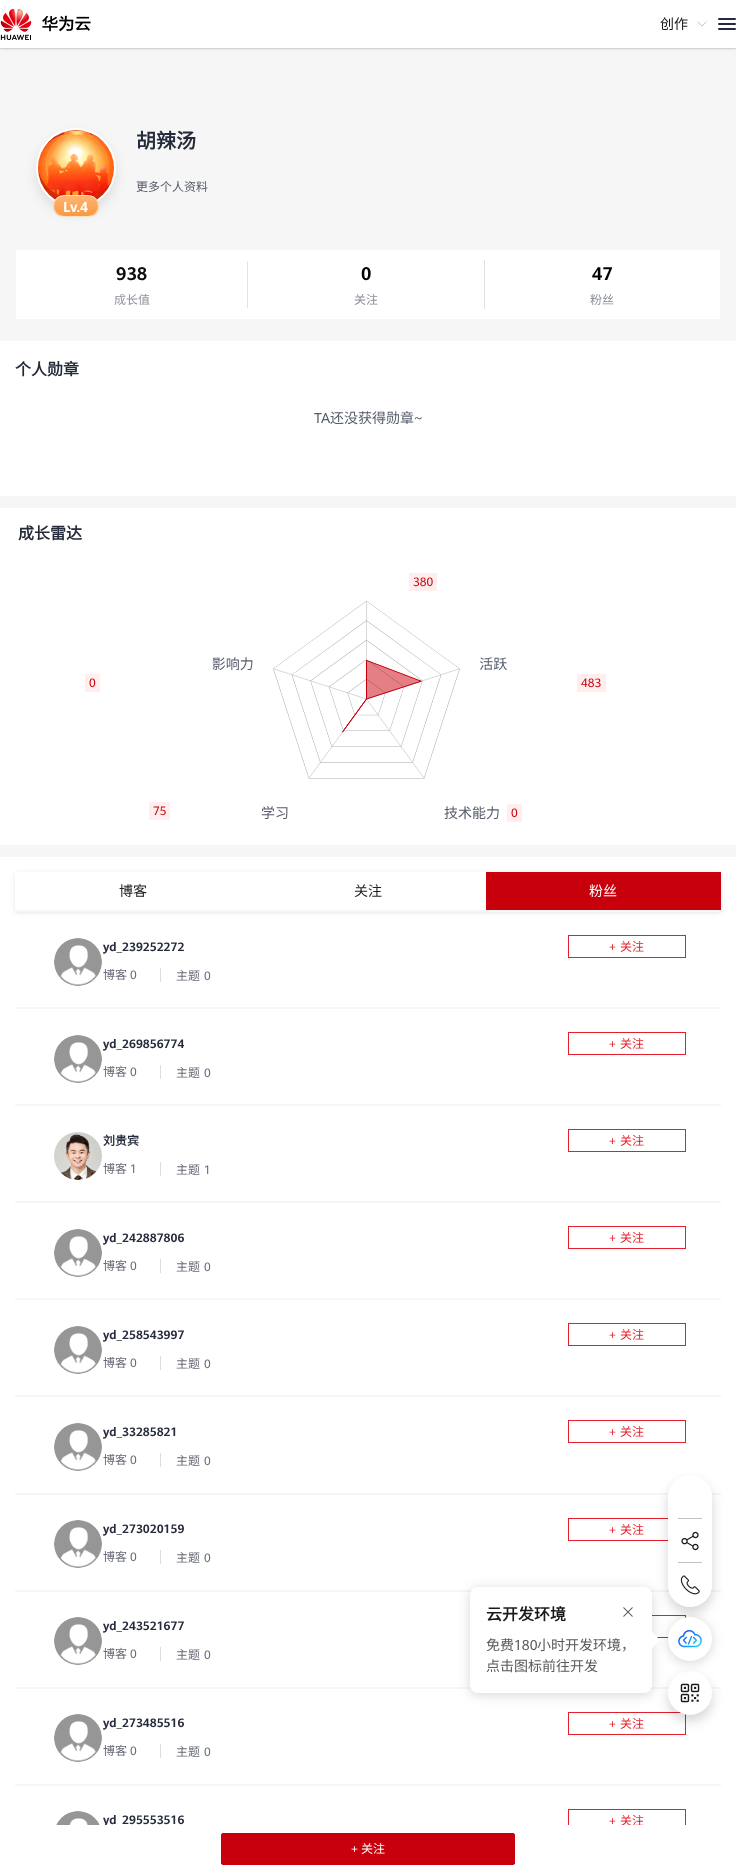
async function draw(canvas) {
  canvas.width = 736
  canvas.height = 1873
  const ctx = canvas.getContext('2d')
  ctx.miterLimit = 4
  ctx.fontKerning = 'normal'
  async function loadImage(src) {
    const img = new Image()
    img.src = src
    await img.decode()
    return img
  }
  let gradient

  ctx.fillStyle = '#f6f6f6'
  ctx.fillRect(0, 0, 736, 1873)
  ctx.fillStyle = '#dfe1e6'
  ctx.fillRect(0, 48, 736, 1)
  ctx.fillStyle = '#0000001a'
  ctx.filter = 'blur(1.5px)'
  ctx.beginPath()
  ctx.rect(0, 1, 736, 48)
  ctx.fill()
  ctx.filter = 'none'
  ctx.fillStyle = '#fff'
  ctx.fillRect(0, 0, 736, 48)
  ctx.drawImage(await loadImage('image0.png'), 0, 8, 91, 32)
  ctx.font = '14px Noto Sans CJK SC'
  ctx.fillStyle = '#191919'
  ctx.fillText('创作', 660, 29)
  ctx.drawImage(await loadImage('image1.png'), 697, 21, 10, 6)
  ctx.fillStyle = '#252b3a'
  ctx.beginPath()
  ctx.roundRect(718, 18, 18, 2, 1)
  ctx.fill()
  ctx.beginPath()
  ctx.roundRect(718, 23, 18, 2, 1)
  ctx.fill()
  ctx.beginPath()
  ctx.roundRect(718, 28, 18, 2, 1)
  ctx.fill()
  ctx.fillStyle = '#fff'
  ctx.fillRect(0, 857, 736, 968)
  ctx.fillStyle = '#f6f6f6'
  ctx.fillRect(15, 1493, 706, 2)
  ctx.fillRect(15, 1590, 706, 2)
  ctx.strokeStyle = '#e41f2b'
  ctx.strokeRect(568.5, 1518.5, 117, 22)
  ctx.strokeRect(568.5, 1615.5, 117, 22)
  ctx.fillStyle = '#0000002b'
  ctx.filter = 'blur(6px)'
  ctx.beginPath()
  ctx.roundRect(668, 1481, 44, 132, 22)
  ctx.fill()
  ctx.filter = 'none'
  ctx.fillStyle = '#fff'
  ctx.beginPath()
  ctx.roundRect(668, 1475, 44, 132, 22)
  ctx.fill()
  ctx.beginPath()
  ctx.arc(690, 1497, 22, 0, 2 * Math.PI)
  ctx.fill()
  ctx.fillStyle = '#c2c2c2'
  ctx.fillRect(678, 1518, 24, 1)
  ctx.drawImage(await loadImage('image2.png'), 681, 1531, 18, 20)
  ctx.fillRect(678, 1562, 24, 1)
  ctx.fillStyle = '#fff'
  ctx.beginPath()
  ctx.arc(690, 1585, 22, 0, 2 * Math.PI)
  ctx.fill()
  ctx.drawImage(await loadImage('image3.png'), 680, 1575, 20, 20)
  ctx.fillStyle = '#f6f6f6'
  ctx.fillRect(15, 1687, 706, 2)
  ctx.strokeRect(568.5, 1712.5, 117, 22)
  ctx.fillStyle = '#0000002b'
  ctx.filter = 'blur(6px)'
  ctx.beginPath()
  ctx.roundRect(668, 1677, 44, 44, 22)
  ctx.fill()
  ctx.filter = 'none'
  ctx.fillStyle = '#fff'
  ctx.beginPath()
  ctx.arc(690, 1693, 22, 0, 2 * Math.PI)
  ctx.fill()
  ctx.drawImage(await loadImage('image4.png'), 680, 1683, 20, 20)
  ctx.font = 'bold 20px Noto Sans CJK SC'
  ctx.fillStyle = '#252b3a'
  ctx.fillText('胡辣汤', 136, 148)
  ctx.font = '12px Noto Sans CJK SC'
  ctx.fillStyle = '#575d6c'
  ctx.fillText('更多个人资料', 136, 191)
  ctx.fillStyle = '#0000001a'
  ctx.filter = 'blur(6px)'
  ctx.beginPath()
  ctx.roundRect(36, 134, 80, 80, 40)
  ctx.fill()
  ctx.filter = 'none'
  ctx.fillStyle = '#fff'
  ctx.beginPath()
  ctx.arc(76, 168, 39, 0, 2 * Math.PI)
  ctx.fill()
  ctx.strokeStyle = '#fff'
  ctx.lineWidth = 2
  ctx.stroke()
  ctx.drawImage(await loadImage('image5.png'), 38, 130, 76, 70)
  ctx.save()
  ctx.beginPath()
  ctx.roundRect(53, 195, 46, 22, 11)
  ctx.clip()
  gradient = ctx.createLinearGradient(76, 196, 76, 216)
  gradient.addColorStop(0, '#ffb573')
  gradient.addColorStop(1, '#fa9841')
  ctx.fillStyle = gradient
  ctx.fillRect(53, 196, 46, 20)
  ctx.restore()
  ctx.beginPath()
  ctx.roundRect(53.5, 195.5, 45, 21, 10.5)
  ctx.strokeStyle = '#ffe1c7'
  ctx.lineWidth = 1
  ctx.stroke()
  ctx.font = 'bold 14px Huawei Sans'
  ctx.fillText('Lv.4', 63, 212)
  ctx.fillRect(16, 250, 704, 69)
  ctx.fillStyle = '#e1e3e7'
  ctx.fillRect(247, 261, 1, 47)
  ctx.font = 'bold 18px Huawei Sans'
  ctx.fillStyle = '#0d0d0d'
  ctx.fillText('938', 116, 280)
  ctx.font = '12px Noto Sans CJK SC'
  ctx.fillStyle = '#90949e'
  ctx.fillText('成长值', 114, 304)
  ctx.fillStyle = '#dfe1e6'
  ctx.fillRect(484, 260, 1, 49)
  ctx.font = 'bold 18px Huawei Sans'
  ctx.fillStyle = '#000'
  ctx.fillText('0', 361, 280)
  ctx.font = '12px Noto Sans CJK SC'
  ctx.fillStyle = '#8a8e99'
  ctx.fillText('关注', 354, 304)
  ctx.font = 'bold 18px Huawei Sans'
  ctx.fillStyle = '#000'
  ctx.fillText('47', 592, 280)
  ctx.font = '12px Noto Sans CJK SC'
  ctx.fillStyle = '#8a8e99'
  ctx.fillText('粉丝', 590, 304)
  ctx.fillStyle = '#fff'
  ctx.fillRect(0, 341, 736, 155)
  ctx.font = 'bold 16px Noto Sans CJK SC'
  ctx.fillStyle = '#252b3a'
  ctx.fillText('个人勋章', 15, 375)
  ctx.font = '14px Huawei Sans'
  ctx.fillStyle = '#575d6c'
  ctx.fillText('TA', 314, 423)
  ctx.font = '14px Noto Sans CJK SC'
  ctx.fillText('还没获得勋章', 330, 423)
  ctx.font = '14px Huawei Sans'
  ctx.fillText('~', 414, 423)
  ctx.fillStyle = '#fff'
  ctx.fillRect(0, 508, 736, 337)
  ctx.font = 'bold 16px Noto Sans CJK SC'
  ctx.fillStyle = '#252b3a'
  ctx.fillText('成长雷达', 18, 539)
  ctx.fillStyle = '#ffeeed'
  ctx.fillRect(409, 573, 28, 18)
  ctx.font = '12px Huawei Sans'
  ctx.fillStyle = '#c7000b'
  ctx.fillText('380', 413, 586)
  ctx.fillStyle = '#ffeeed'
  ctx.fillRect(85, 674, 15, 18)
  ctx.fillStyle = '#c7000b'
  ctx.fillText('0', 89, 687)
  ctx.drawImage(await loadImage('image6.png'), 212, 600, 295, 220)
  ctx.fillStyle = '#ffeeed'
  ctx.fillRect(577, 674, 29, 18)
  ctx.fillStyle = '#c7000b'
  ctx.fillText('483', 581, 687)
  ctx.fillStyle = '#ffeeed'
  ctx.fillRect(149, 802, 21, 18)
  ctx.fillStyle = '#c7000b'
  ctx.fillText('75', 153, 815)
  ctx.fillStyle = '#ffeeed'
  ctx.fillRect(507, 804, 15, 18)
  ctx.fillStyle = '#c7000b'
  ctx.fillText('0', 511, 817)
  ctx.save()
  ctx.beginPath()
  ctx.moveTo(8, 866)
  ctx.lineTo(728, 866)
  ctx.lineTo(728, 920)
  ctx.lineTo(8, 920)
  ctx.closePath()
  ctx.moveTo(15, 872)
  ctx.lineTo(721, 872)
  ctx.lineTo(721, 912)
  ctx.lineTo(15, 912)
  ctx.closePath()
  ctx.clip('evenodd')
  ctx.fillStyle = '#80849133'
  ctx.filter = 'blur(2px)'
  ctx.beginPath()
  ctx.rect(15, 873, 706, 40)
  ctx.fill()
  ctx.filter = 'none'
  ctx.restore()
  ctx.fillStyle = '#f6f6f6'
  ctx.fillRect(15, 910, 706, 2)
  ctx.font = '14px Noto Sans CJK SC'
  ctx.fillStyle = '#222'
  ctx.fillText('博客', 119, 896)
  ctx.fillText('关注', 354, 896)
  ctx.fillStyle = '#c7000b'
  ctx.fillRect(486, 872, 235, 38)
  ctx.fillStyle = '#fff'
  ctx.fillText('粉丝', 589, 896)
  ctx.fillStyle = '#f6f6f6'
  ctx.fillRect(15, 1007, 706, 2)
  ctx.drawImage(await loadImage('image7.png'), 54, 938, 48, 48)
  ctx.save()
  ctx.beginPath()
  ctx.rect(103, 936, 81, 22)
  ctx.clip()
  ctx.font = 'bold 12px Huawei Sans'
  ctx.fillStyle = '#252b3a'
  ctx.fillText('yd_239252272', 103, 951)
  ctx.restore()
  ctx.strokeStyle = '#e41f2b'
  ctx.strokeRect(568.5, 935.5, 117, 22)
  ctx.font = '12px Huawei Sans'
  ctx.fillStyle = '#e41f2b'
  ctx.fillText('+', 609, 951)
  ctx.font = '12px Noto Sans CJK SC'
  ctx.fillText('关注', 620, 951)
  ctx.fillStyle = '#666a75'
  ctx.fillText('博客', 103, 979)
  ctx.font = '12px Huawei Sans'
  ctx.fillText('0', 130, 979)
  ctx.fillStyle = '#ddd'
  ctx.fillRect(160, 968, 1, 14)
  ctx.font = '12px Noto Sans CJK SC'
  ctx.fillStyle = '#666a75'
  ctx.fillText('主题', 176, 980)
  ctx.font = '12px Huawei Sans'
  ctx.fillText('0', 204, 980)
  ctx.fillStyle = '#f6f6f6'
  ctx.fillRect(15, 1104, 706, 2)
  ctx.drawImage(await loadImage('image7.png'), 54, 1035, 48, 48)
  ctx.save()
  ctx.beginPath()
  ctx.rect(103, 1033, 81, 22)
  ctx.clip()
  ctx.font = 'bold 12px Huawei Sans'
  ctx.fillStyle = '#252b3a'
  ctx.fillText('yd_269856774', 103, 1048)
  ctx.restore()
  ctx.strokeRect(568.5, 1032.5, 117, 22)
  ctx.fillStyle = '#e41f2b'
  ctx.fillText('+', 609, 1048)
  ctx.font = '12px Noto Sans CJK SC'
  ctx.fillText('关注', 620, 1048)
  ctx.fillStyle = '#666a75'
  ctx.fillText('博客', 103, 1076)
  ctx.font = '12px Huawei Sans'
  ctx.fillText('0', 130, 1076)
  ctx.fillStyle = '#ddd'
  ctx.fillRect(160, 1065, 1, 14)
  ctx.font = '12px Noto Sans CJK SC'
  ctx.fillStyle = '#666a75'
  ctx.fillText('主题', 176, 1077)
  ctx.font = '12px Huawei Sans'
  ctx.fillText('0', 204, 1077)
  ctx.fillStyle = '#f6f6f6'
  ctx.fillRect(15, 1201, 706, 2)
  ctx.drawImage(await loadImage('image8.png'), 54, 1132, 48, 48)
  ctx.font = 'bold 12px Noto Sans CJK SC'
  ctx.fillStyle = '#252b3a'
  ctx.fillText('刘贵宾', 103, 1145)
  ctx.strokeRect(568.5, 1129.5, 117, 22)
  ctx.font = '12px Huawei Sans'
  ctx.fillStyle = '#e41f2b'
  ctx.fillText('+', 609, 1145)
  ctx.font = '12px Noto Sans CJK SC'
  ctx.fillText('关注', 620, 1145)
  ctx.fillStyle = '#666a75'
  ctx.fillText('博客', 103, 1173)
  ctx.font = '12px Huawei Sans'
  ctx.fillText('1', 130, 1173)
  ctx.fillStyle = '#ddd'
  ctx.fillRect(160, 1162, 1, 14)
  ctx.font = '12px Noto Sans CJK SC'
  ctx.fillStyle = '#666a75'
  ctx.fillText('主题', 176, 1174)
  ctx.font = '12px Huawei Sans'
  ctx.fillText('1', 204, 1174)
  ctx.fillStyle = '#f6f6f6'
  ctx.fillRect(15, 1298, 706, 2)
  ctx.drawImage(await loadImage('image9.png'), 54, 1229, 48, 48)
  ctx.save()
  ctx.beginPath()
  ctx.rect(103, 1227, 81, 22)
  ctx.clip()
  ctx.font = 'bold 12px Huawei Sans'
  ctx.fillStyle = '#252b3a'
  ctx.fillText('yd_242887806', 103, 1242)
  ctx.restore()
  ctx.strokeRect(568.5, 1226.5, 117, 22)
  ctx.fillStyle = '#e41f2b'
  ctx.fillText('+', 609, 1242)
  ctx.font = '12px Noto Sans CJK SC'
  ctx.fillText('关注', 620, 1242)
  ctx.fillStyle = '#666a75'
  ctx.fillText('博客', 103, 1270)
  ctx.font = '12px Huawei Sans'
  ctx.fillText('0', 130, 1270)
  ctx.fillStyle = '#ddd'
  ctx.fillRect(160, 1259, 1, 14)
  ctx.font = '12px Noto Sans CJK SC'
  ctx.fillStyle = '#666a75'
  ctx.fillText('主题', 176, 1271)
  ctx.font = '12px Huawei Sans'
  ctx.fillText('0', 204, 1271)
  ctx.fillStyle = '#f6f6f6'
  ctx.fillRect(15, 1395, 706, 2)
  ctx.drawImage(await loadImage('image7.png'), 54, 1326, 48, 48)
  ctx.save()
  ctx.beginPath()
  ctx.rect(103, 1324, 81, 22)
  ctx.clip()
  ctx.font = 'bold 12px Huawei Sans'
  ctx.fillStyle = '#252b3a'
  ctx.fillText('yd_258543997', 103, 1339)
  ctx.restore()
  ctx.strokeRect(568.5, 1323.5, 117, 22)
  ctx.fillStyle = '#e41f2b'
  ctx.fillText('+', 609, 1339)
  ctx.font = '12px Noto Sans CJK SC'
  ctx.fillText('关注', 620, 1339)
  ctx.fillStyle = '#666a75'
  ctx.fillText('博客', 103, 1367)
  ctx.font = '12px Huawei Sans'
  ctx.fillText('0', 130, 1367)
  ctx.fillStyle = '#ddd'
  ctx.fillRect(160, 1356, 1, 14)
  ctx.font = '12px Noto Sans CJK SC'
  ctx.fillStyle = '#666a75'
  ctx.fillText('主题', 176, 1368)
  ctx.font = '12px Huawei Sans'
  ctx.fillText('0', 204, 1368)
  ctx.drawImage(await loadImage('image7.png'), 54, 1423, 48, 48)
  ctx.save()
  ctx.beginPath()
  ctx.rect(103, 1421, 74, 22)
  ctx.clip()
  ctx.font = 'bold 12px Huawei Sans'
  ctx.fillStyle = '#252b3a'
  ctx.fillText('yd_33285821', 103, 1436)
  ctx.restore()
  ctx.strokeRect(568.5, 1420.5, 117, 22)
  ctx.fillStyle = '#e41f2b'
  ctx.fillText('+', 609, 1436)
  ctx.font = '12px Noto Sans CJK SC'
  ctx.fillText('关注', 620, 1436)
  ctx.fillStyle = '#666a75'
  ctx.fillText('博客', 103, 1464)
  ctx.font = '12px Huawei Sans'
  ctx.fillText('0', 130, 1464)
  ctx.fillStyle = '#ddd'
  ctx.fillRect(160, 1453, 1, 14)
  ctx.font = '12px Noto Sans CJK SC'
  ctx.fillStyle = '#666a75'
  ctx.fillText('主题', 176, 1465)
  ctx.font = '12px Huawei Sans'
  ctx.fillText('0', 204, 1465)
  ctx.drawImage(await loadImage('image10.png'), 54, 1520, 48, 48)
  ctx.save()
  ctx.beginPath()
  ctx.rect(103, 1518, 81, 22)
  ctx.clip()
  ctx.font = 'bold 12px Huawei Sans'
  ctx.fillStyle = '#252b3a'
  ctx.fillText('yd_273020159', 103, 1533)
  ctx.restore()
  ctx.fillStyle = '#e41f2b'
  ctx.fillText('+', 609, 1534)
  ctx.font = '12px Noto Sans CJK SC'
  ctx.fillText('关注', 620, 1534)
  ctx.fillStyle = '#666a75'
  ctx.fillText('博客', 103, 1561)
  ctx.font = '12px Huawei Sans'
  ctx.fillText('0', 130, 1561)
  ctx.fillStyle = '#ddd'
  ctx.fillRect(160, 1550, 1, 14)
  ctx.font = '12px Noto Sans CJK SC'
  ctx.fillStyle = '#666a75'
  ctx.fillText('主题', 176, 1562)
  ctx.font = '12px Huawei Sans'
  ctx.fillText('0', 204, 1562)
  ctx.drawImage(await loadImage('image7.png'), 54, 1617, 48, 48)
  ctx.save()
  ctx.beginPath()
  ctx.rect(103, 1615, 81, 22)
  ctx.clip()
  ctx.font = 'bold 12px Huawei Sans'
  ctx.fillStyle = '#252b3a'
  ctx.fillText('yd_243521677', 103, 1630)
  ctx.restore()
  ctx.font = '12px Noto Sans CJK SC'
  ctx.fillText('博客', 103, 1658)
  ctx.font = '12px Huawei Sans'
  ctx.fillText('0', 130, 1658)
  ctx.fillStyle = '#ddd'
  ctx.fillRect(160, 1647, 1, 14)
  ctx.font = '12px Noto Sans CJK SC'
  ctx.fillStyle = '#666a75'
  ctx.fillText('主题', 176, 1659)
  ctx.font = '12px Huawei Sans'
  ctx.fillText('0', 204, 1659)
  ctx.fillStyle = '#f6f6f6'
  ctx.fillRect(15, 1784, 706, 2)
  ctx.drawImage(await loadImage('image7.png'), 54, 1714, 48, 48)
  ctx.save()
  ctx.beginPath()
  ctx.rect(103, 1712, 81, 22)
  ctx.clip()
  ctx.font = 'bold 12px Huawei Sans'
  ctx.fillStyle = '#252b3a'
  ctx.fillText('yd_273485516', 103, 1727)
  ctx.restore()
  ctx.fillStyle = '#e41f2b'
  ctx.fillText('+', 609, 1728)
  ctx.font = '12px Noto Sans CJK SC'
  ctx.fillText('关注', 620, 1728)
  ctx.fillStyle = '#666a75'
  ctx.fillText('博客', 103, 1755)
  ctx.font = '12px Huawei Sans'
  ctx.fillText('0', 130, 1755)
  ctx.fillStyle = '#ddd'
  ctx.fillRect(160, 1744, 1, 14)
  ctx.font = '12px Noto Sans CJK SC'
  ctx.fillStyle = '#666a75'
  ctx.fillText('主题', 176, 1756)
  ctx.font = '12px Huawei Sans'
  ctx.fillText('0', 204, 1756)
  ctx.drawImage(await loadImage('image11.png'), 56, 1811, 44, 14)
  ctx.font = 'bold 12px Huawei Sans'
  ctx.fillStyle = '#252b3a'
  ctx.fillText('yd_295553516', 103, 1824)
  ctx.strokeRect(568.5, 1809.5, 117, 22)
  ctx.font = '12px Huawei Sans'
  ctx.fillStyle = '#e41f2b'
  ctx.fillText('+', 609, 1825)
  ctx.font = '12px Noto Sans CJK SC'
  ctx.fillText('关注', 620, 1825)
  ctx.fillStyle = '#fff'
  ctx.fillRect(0, 1825, 736, 48)
  ctx.fillStyle = '#c7000b'
  ctx.beginPath()
  ctx.roundRect(221.5, 1833.5, 293, 31, 1.5)
  ctx.fill()
  ctx.strokeStyle = '#c7000b'
  ctx.stroke()
  ctx.font = '12px Huawei Sans'
  ctx.fillStyle = '#fff'
  ctx.fillText('+', 351, 1853)
  ctx.font = '12px Noto Sans CJK SC'
  ctx.fillText('关注', 361, 1853)
  ctx.fillStyle = '#00000029'
  ctx.filter = 'blur(6px)'
  ctx.beginPath()
  ctx.roundRect(470, 1589, 182, 106, 8)
  ctx.fill()
  ctx.filter = 'none'
  ctx.fillStyle = '#fff'
  ctx.beginPath()
  ctx.roundRect(470, 1587, 182, 106, 8)
  ctx.fill()
  ctx.font = 'bold 16px Noto Sans CJK SC'
  ctx.fillStyle = '#191919'
  ctx.fillText('云开发环境', 486, 1620)
  ctx.drawImage(await loadImage('image12.png'), 623, 1607, 10, 10)
  ctx.font = '14px Noto Sans CJK SC'
  ctx.fillStyle = '#595959'
  ctx.fillText('免费', 486, 1650)
  ctx.font = '14px Huawei Sans'
  ctx.fillText('180', 514, 1650)
  ctx.font = '14px Noto Sans CJK SC'
  ctx.fillText('小时开发环境，', 537, 1650)
  ctx.fillText('点击图标前往开发', 486, 1671)
  ctx.fillStyle = '#fff'
  ctx.beginPath()
  ctx.moveTo(652, 1648)
  ctx.lineTo(652, 1632)
  ctx.lineTo(660, 1640)
  ctx.closePath()
  ctx.fill()
  ctx.fillStyle = '#00000029'
  ctx.filter = 'blur(6px)'
  ctx.beginPath()
  ctx.roundRect(668, 1619, 44, 44, 22)
  ctx.fill()
  ctx.filter = 'none'
  ctx.fillStyle = '#fff'
  ctx.beginPath()
  ctx.arc(690, 1639, 22, 0, 2 * Math.PI)
  ctx.fill()
  ctx.drawImage(await loadImage('image13.png'), 678, 1630, 24, 18)
}

draw(document.querySelector('canvas'))
